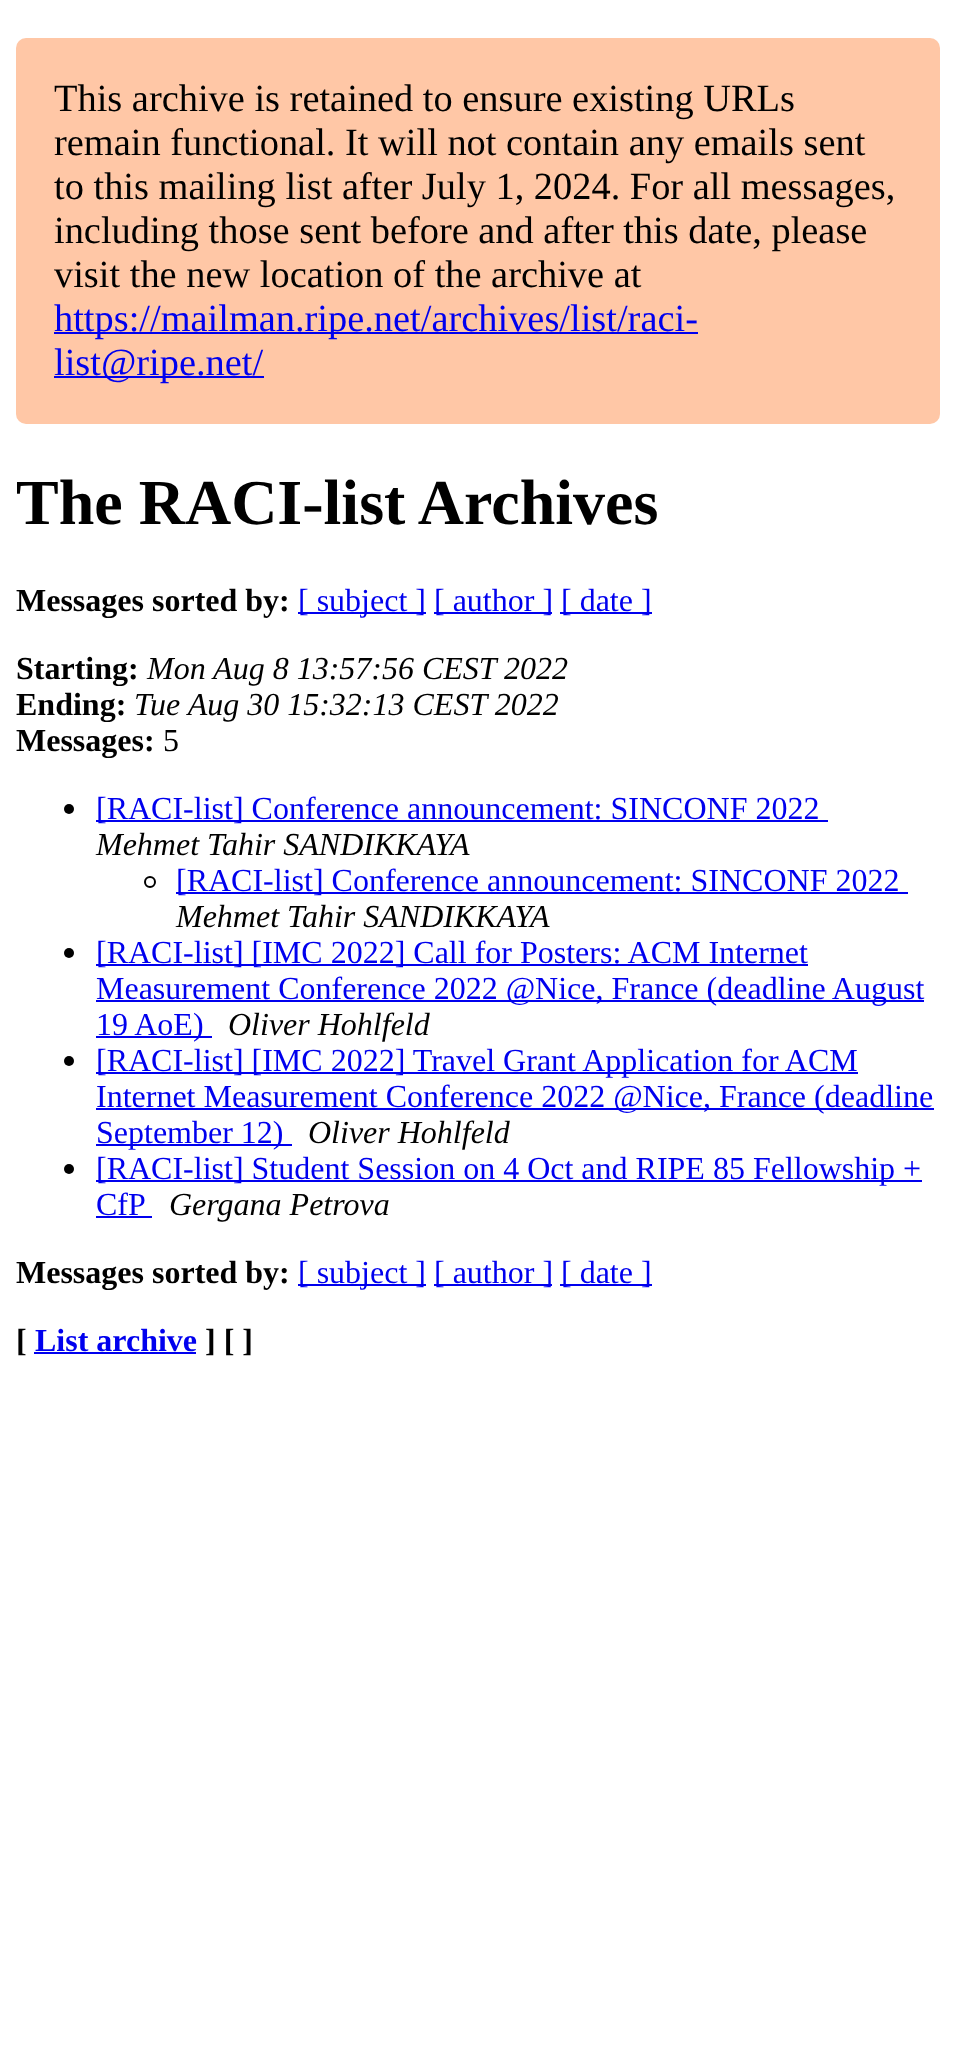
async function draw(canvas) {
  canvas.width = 955
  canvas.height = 2069
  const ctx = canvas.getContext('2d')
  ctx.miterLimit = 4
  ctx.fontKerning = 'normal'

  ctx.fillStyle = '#fff'
  ctx.fillRect(0, 0, 955, 2069)
  ctx.fillStyle = '#ffc7a6'
  ctx.beginPath()
  ctx.roundRect(16, 38, 924, 386, 10)
  ctx.fill()
  ctx.font = '38.4px Liberation Serif'
  ctx.fillStyle = '#000'
  ctx.fillText('This archive is retained to ensure existing URLs', 54, 111)
  ctx.fillText('remain functional. It will not contain any emails sent', 54, 155)
  ctx.fillText('to this mailing list after July 1, 2024. For all messages,', 54, 199)
  ctx.fillText('including those sent before and after this date, please', 54, 243)
  ctx.fillText('visit the new location of the archive at', 54, 287)
  ctx.fillStyle = '#00e'
  ctx.fillRect(54, 332, 644, 2)
  ctx.fillText('https://mailman.ripe.net/archives/list/raci-', 54, 331)
  ctx.fillRect(54, 376, 210, 2)
  ctx.fillText('list@ripe.net/', 54, 375)
  ctx.font = 'bold 64px Liberation Serif'
  ctx.fillStyle = '#000'
  ctx.fillText('The RACI-list Archives', 16, 524)
  ctx.font = 'bold 32px Liberation Serif'
  ctx.fillText('Messages sorted by:', 16, 611)
  ctx.fillStyle = '#00e'
  ctx.fillRect(298, 612, 128, 2)
  ctx.font = '32px Liberation Serif'
  ctx.fillText('[ subject ]', 298, 611)
  ctx.fillRect(434, 612, 118, 2)
  ctx.fillText('[ author ]', 434, 611)
  ctx.fillRect(560, 612, 92, 2)
  ctx.fillText('[ date ]', 561, 611)
  ctx.font = 'bold 32px Liberation Serif'
  ctx.fillStyle = '#000'
  ctx.fillText('Starting:', 16, 679)
  ctx.font = 'italic 32px Liberation Serif'
  ctx.fillText('Mon Aug 8 13:57:56 CEST 2022', 147, 679)
  ctx.font = 'bold 32px Liberation Serif'
  ctx.fillText('Ending:', 16, 715)
  ctx.font = 'italic 32px Liberation Serif'
  ctx.fillText('Tue Aug 30 15:32:13 CEST 2022', 134, 715)
  ctx.font = 'bold 32px Liberation Serif'
  ctx.fillText('Messages:', 16, 751)
  ctx.font = '32px Liberation Serif'
  ctx.fillText('5', 163, 751)
  ctx.beginPath()
  ctx.arc(69, 809, 5, 0, 2 * Math.PI)
  ctx.fill()
  ctx.fillStyle = '#00e'
  ctx.fillRect(96, 820, 732, 2)
  ctx.fillText('[RACI-list] Conference announcement: SINCONF 2022', 96, 819)
  ctx.font = 'italic 32px Liberation Serif'
  ctx.fillStyle = '#000'
  ctx.fillText('Mehmet Tahir SANDIKKAYA', 96, 855)
  ctx.beginPath()
  ctx.arc(150, 882, 5, 0, 2 * Math.PI)
  ctx.strokeStyle = '#000'
  ctx.lineWidth = 2
  ctx.stroke()
  ctx.fillStyle = '#00e'
  ctx.fillRect(176, 892, 732, 2)
  ctx.font = '32px Liberation Serif'
  ctx.fillText('[RACI-list] Conference announcement: SINCONF 2022', 176, 891)
  ctx.font = 'italic 32px Liberation Serif'
  ctx.fillStyle = '#000'
  ctx.fillText('Mehmet Tahir SANDIKKAYA', 176, 927)
  ctx.beginPath()
  ctx.arc(69, 953, 5, 0, 2 * Math.PI)
  ctx.fill()
  ctx.fillStyle = '#00e'
  ctx.fillRect(96, 964, 712, 2)
  ctx.font = '32px Liberation Serif'
  ctx.fillText('[RACI-list] [IMC 2022] Call for Posters: ACM Internet', 96, 963)
  ctx.fillRect(96, 1000, 828, 2)
  ctx.fillText('Measurement Conference 2022 @Nice, France (deadline August', 96, 999)
  ctx.fillRect(96, 1036, 116, 2)
  ctx.fillText('19 AoE)', 96, 1035)
  ctx.font = 'italic 32px Liberation Serif'
  ctx.fillStyle = '#000'
  ctx.fillText('Oliver Hohlfeld', 228, 1035)
  ctx.beginPath()
  ctx.arc(69, 1061, 5, 0, 2 * Math.PI)
  ctx.fill()
  ctx.fillStyle = '#00e'
  ctx.fillRect(96, 1072, 762, 2)
  ctx.font = '32px Liberation Serif'
  ctx.fillText('[RACI-list] [IMC 2022] Travel Grant Application for ACM', 96, 1071)
  ctx.fillRect(96, 1108, 838, 2)
  ctx.fillText('Internet Measurement Conference 2022 @Nice, France (deadline', 96, 1107)
  ctx.fillRect(96, 1144, 196, 2)
  ctx.fillText('September 12)', 96, 1143)
  ctx.font = 'italic 32px Liberation Serif'
  ctx.fillStyle = '#000'
  ctx.fillText('Oliver Hohlfeld', 308, 1143)
  ctx.beginPath()
  ctx.arc(69, 1169, 5, 0, 2 * Math.PI)
  ctx.fill()
  ctx.fillStyle = '#00e'
  ctx.fillRect(96, 1180, 826, 2)
  ctx.font = '32px Liberation Serif'
  ctx.fillText('[RACI-list] Student Session on 4 Oct and RIPE 85 Fellowship +', 96, 1179)
  ctx.fillText('CfP', 96, 1215)
  ctx.fillRect(96, 1216, 56, 2)
  ctx.font = 'italic 32px Liberation Serif'
  ctx.fillStyle = '#000'
  ctx.fillText('Gergana Petrova', 169, 1215)
  ctx.font = 'bold 32px Liberation Serif'
  ctx.fillText('Messages sorted by:', 16, 1283)
  ctx.fillStyle = '#00e'
  ctx.fillRect(298, 1284, 128, 2)
  ctx.font = '32px Liberation Serif'
  ctx.fillText('[ subject ]', 298, 1283)
  ctx.fillRect(434, 1284, 118, 2)
  ctx.fillText('[ author ]', 434, 1283)
  ctx.fillRect(560, 1284, 92, 2)
  ctx.fillText('[ date ]', 561, 1283)
  ctx.font = 'bold 32px Liberation Serif'
  ctx.fillStyle = '#000'
  ctx.fillText('[', 16, 1351)
  ctx.fillStyle = '#00e'
  ctx.fillText('List archive', 35, 1351)
  ctx.fillRect(34, 1352, 162, 2)
  ctx.fillStyle = '#000'
  ctx.fillText('] [ ]', 205, 1351)
}

draw(document.querySelector('canvas'))
